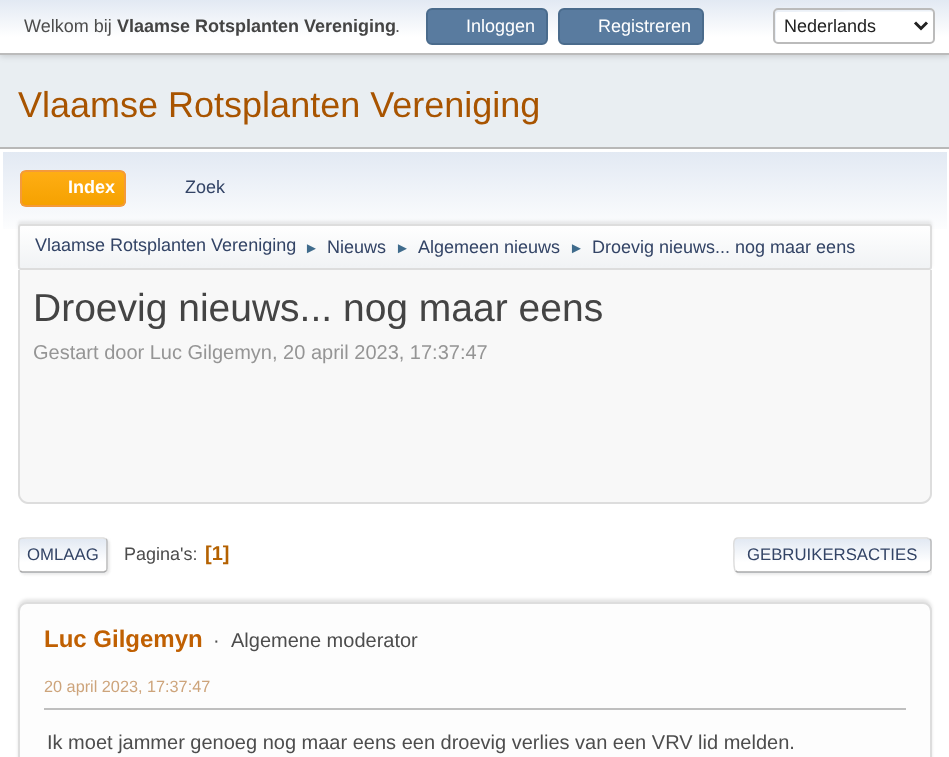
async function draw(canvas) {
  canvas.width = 949
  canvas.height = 757
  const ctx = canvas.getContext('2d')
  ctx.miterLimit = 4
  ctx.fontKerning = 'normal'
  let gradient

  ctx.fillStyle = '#e9eef2'
  ctx.fillRect(0, 0, 949, 757)
  ctx.fillStyle = '#00000029'
  ctx.filter = 'blur(3px)'
  ctx.beginPath()
  ctx.rect(0, 2, 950, 54)
  ctx.fill()
  ctx.filter = 'none'
  gradient = ctx.createLinearGradient(475, 0, 475, 53)
  gradient.addColorStop(0, '#e2e9f3')
  gradient.addColorStop(0.7, '#fff')
  ctx.fillStyle = gradient
  ctx.fillRect(0, 0, 949, 53)
  ctx.fillStyle = '#bbb'
  ctx.fillRect(0, 53, 949, 2)
  ctx.font = '18px Liberation Sans'
  ctx.fillStyle = '#4d4d4d'
  ctx.fillText('Welkom bij', 24, 32)
  ctx.font = 'bold 18px Liberation Sans'
  ctx.fillStyle = '#444'
  ctx.fillText('Vlaamse Rotsplanten Vereniging', 117, 32)
  ctx.font = '18px Liberation Sans'
  ctx.fillStyle = '#4d4d4d'
  ctx.fillText('.', 395, 32)
  ctx.fillStyle = '#597b9f'
  ctx.beginPath()
  ctx.roundRect(427, 9, 120, 35, 5)
  ctx.fill()
  ctx.strokeStyle = '#4a6b8c'
  ctx.lineWidth = 2
  ctx.stroke()
  ctx.fillStyle = '#fff'
  ctx.fillText('Inloggen', 466, 32)
  ctx.fillStyle = '#597b9f'
  ctx.beginPath()
  ctx.roundRect(559, 9, 144, 35, 5)
  ctx.fill()
  ctx.stroke()
  ctx.fillStyle = '#fff'
  ctx.fillText('Registreren', 598, 32)
  ctx.beginPath()
  ctx.roundRect(773, 8, 162, 36, 5)
  ctx.fill()
  ctx.fillStyle = '#ecf1f8'
  ctx.beginPath()
  ctx.moveTo(778, 12)
  ctx.bezierCurveTo(792, 12, 932, 11, 933, 12)
  ctx.lineTo(932, 10)
  ctx.lineTo(930, 9)
  ctx.lineTo(802, 9)
  ctx.bezierCurveTo(802, 9, 774, 4, 774, 12)
  ctx.lineTo(774, 30)
  ctx.bezierCurveTo(774, 32, 772, 41, 776, 42)
  ctx.lineTo(776, 15)
  ctx.bezierCurveTo(776, 13, 777, 12, 778, 12)
  ctx.closePath()
  ctx.fill()
  ctx.beginPath()
  ctx.roundRect(774, 9, 160, 34, 4)
  ctx.strokeStyle = '#bbb'
  ctx.stroke()
  ctx.beginPath()
  ctx.moveTo(915, 22.5)
  ctx.lineTo(921, 28.5)
  ctx.lineTo(927, 22.5)
  ctx.strokeStyle = '#222'
  ctx.lineWidth = 3
  ctx.stroke()
  ctx.fillStyle = '#222'
  ctx.fillText('Nederlands', 784, 32)
  ctx.font = '36px Liberation Sans'
  ctx.fillStyle = '#a85400'
  ctx.fillText('Vlaamse Rotsplanten Vereniging', 18, 117)
  ctx.fillStyle = '#fff'
  ctx.fillRect(0, 149, 949, 608)
  ctx.fillStyle = '#b8b8b8'
  ctx.fillRect(0, 147, 949, 2)
  gradient = ctx.createLinearGradient(475, 151, 475, 273)
  gradient.addColorStop(0, '#e2e9f3')
  gradient.addColorStop(0.7, '#fff')
  ctx.fillStyle = gradient
  ctx.fillRect(3, 152, 944, 77)
  ctx.save()
  ctx.beginPath()
  ctx.roundRect(20, 170, 106, 37, 6)
  ctx.clip()
  gradient = ctx.createLinearGradient(73, 171, 73, 206)
  gradient.addColorStop(0, '#ffae14')
  gradient.addColorStop(1, '#f5a100')
  ctx.fillStyle = gradient
  ctx.fillRect(20, 171, 106, 35)
  ctx.restore()
  ctx.beginPath()
  ctx.roundRect(21, 171, 104, 35, 5)
  ctx.strokeStyle = '#f49a3a'
  ctx.lineWidth = 2
  ctx.stroke()
  ctx.font = 'bold 18px Liberation Sans'
  ctx.fillStyle = '#fff'
  ctx.fillText('Index', 68, 193)
  ctx.font = '18px Liberation Sans'
  ctx.fillStyle = '#346'
  ctx.fillText('Zoek', 185, 193)
  ctx.fillStyle = '#00000014'
  ctx.filter = 'blur(1.5px)'
  ctx.beginPath()
  ctx.roundRect(18, 221, 914, 46, 3)
  ctx.fill()
  ctx.filter = 'none'
  ctx.save()
  ctx.beginPath()
  ctx.roundRect(18, 224, 914, 46, 3)
  ctx.clip()
  gradient = ctx.createLinearGradient(475, 225, 475, 269)
  gradient.addColorStop(0, '#fff')
  gradient.addColorStop(0.95, '#f1f3f5')
  ctx.fillStyle = gradient
  ctx.fillRect(18, 225, 914, 44)
  ctx.restore()
  ctx.beginPath()
  ctx.roundRect(19, 225, 912, 44, 2)
  ctx.strokeStyle = '#ddd'
  ctx.stroke()
  ctx.fillStyle = '#346'
  ctx.fillText('Vlaamse Rotsplanten Vereniging', 35, 251)
  ctx.font = '15px Liberation Sans'
  ctx.fillStyle = '#3f6b8c'
  ctx.fillText('►', 304, 253)
  ctx.font = '18px Liberation Sans'
  ctx.fillStyle = '#346'
  ctx.fillText('Nieuws', 327, 253)
  ctx.font = '15px Liberation Sans'
  ctx.fillStyle = '#3f6b8c'
  ctx.fillText('►', 395, 253)
  ctx.font = '18px Liberation Sans'
  ctx.fillStyle = '#346'
  ctx.fillText('Algemeen nieuws', 418, 253)
  ctx.font = '15px Liberation Sans'
  ctx.fillStyle = '#3f6b8c'
  ctx.fillText('►', 569, 253)
  ctx.font = '18px Liberation Sans'
  ctx.fillStyle = '#346'
  ctx.fillText('Droevig nieuws... nog maar eens', 592, 253)
  ctx.fillStyle = '#f8f8f8'
  ctx.beginPath()
  ctx.roundRect(18, 270, 914, 234, [0, 0, 11, 11])
  ctx.fill()
  ctx.fillStyle = '#ddd'
  ctx.beginPath()
  ctx.moveTo(18, 270)
  ctx.lineTo(932, 270)
  ctx.lineTo(932, 494)
  ctx.bezierCurveTo(932, 499, 927, 504, 921, 504)
  ctx.lineTo(28, 504)
  ctx.bezierCurveTo(23, 504, 18, 499, 18, 494)
  ctx.closePath()
  ctx.moveTo(20, 270)
  ctx.lineTo(930, 270)
  ctx.lineTo(930, 494)
  ctx.bezierCurveTo(930, 498, 926, 502, 921, 502)
  ctx.lineTo(28, 502)
  ctx.bezierCurveTo(24, 502, 20, 498, 20, 494)
  ctx.closePath()
  ctx.fill('evenodd')
  ctx.font = '39px Liberation Sans'
  ctx.fillStyle = '#444'
  ctx.fillText('Droevig nieuws... nog maar eens', 33, 321)
  ctx.font = '20px Liberation Sans'
  ctx.fillStyle = '#959595'
  ctx.fillText('Gestart door Luc Gilgemyn, 20 april 2023, 17:37:47', 33, 359)
  ctx.fillStyle = '#dddddd91'
  ctx.filter = 'blur(1px)'
  ctx.beginPath()
  ctx.roundRect(20, 539, 90, 36, 5)
  ctx.fill()
  ctx.filter = 'none'
  ctx.fillStyle = '#fff'
  ctx.beginPath()
  ctx.roundRect(18, 537, 90, 36, 5)
  ctx.fill()
  ctx.save()
  ctx.beginPath()
  ctx.roundRect(18, 537, 90, 36, 5)
  ctx.clip()
  gradient = ctx.createLinearGradient(63, 539, 63, 572)
  gradient.addColorStop(0, '#e2e9f3')
  gradient.addColorStop(0.7, '#fff')
  ctx.fillStyle = gradient
  ctx.fillRect(18, 539, 90, 33)
  gradient = ctx.createLinearGradient(63, 572, 63, 605)
  gradient.addColorStop(0, '#e2e9f3')
  gradient.addColorStop(0.7, '#fff')
  ctx.fillStyle = gradient
  ctx.fillRect(18, 572, 90, 1)
  ctx.restore()
  ctx.beginPath()
  ctx.moveTo(106, 539)
  ctx.bezierCurveTo(107, 539.5, 107, 540.5, 107, 541.5)
  ctx.lineTo(107, 568.5)
  ctx.bezierCurveTo(107, 569.5, 107, 570.5, 106, 571)
  ctx.strokeStyle = '#bbb'
  ctx.lineWidth = 1.5
  ctx.stroke()
  ctx.beginPath()
  ctx.moveTo(106, 571)
  ctx.lineTo(104, 572)
  ctx.lineTo(22, 572)
  ctx.lineTo(20, 571)
  ctx.strokeStyle = '#aaa'
  ctx.stroke()
  ctx.save()
  ctx.beginPath()
  ctx.rect(18, 527, 914, 57)
  ctx.clip()
  ctx.beginPath()
  ctx.moveTo(20, 571)
  ctx.bezierCurveTo(17.5, 569, 19, 558, 19, 555)
  ctx.bezierCurveTo(19, 535, 15.5, 538, 36, 538)
  ctx.lineTo(103.5, 538)
  ctx.lineTo(106, 539)
  ctx.strokeStyle = '#ddd'
  ctx.stroke()
  ctx.restore()
  ctx.font = '16.75px Liberation Sans'
  ctx.fillStyle = '#346'
  ctx.fillText('OMLAAG', 27, 560)
  ctx.font = '18px Liberation Sans'
  ctx.fillStyle = '#4d4d4d'
  ctx.fillText('Pagina\'s:', 124, 560)
  ctx.font = 'bold 20px Liberation Sans'
  ctx.fillStyle = '#b46100'
  ctx.fillText('[1]', 205, 560)
  ctx.save()
  ctx.beginPath()
  ctx.rect(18, 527, 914, 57)
  ctx.clip()
  ctx.fillStyle = '#dddddd91'
  ctx.filter = 'blur(1px)'
  ctx.beginPath()
  ctx.roundRect(735, 539, 198, 36, 5)
  ctx.fill()
  ctx.filter = 'none'
  ctx.restore()
  ctx.fillStyle = '#fff'
  ctx.beginPath()
  ctx.roundRect(734, 537, 198, 36, 5)
  ctx.fill()
  ctx.save()
  ctx.beginPath()
  ctx.roundRect(734, 537, 198, 36, 5)
  ctx.clip()
  gradient = ctx.createLinearGradient(833, 539, 833, 572)
  gradient.addColorStop(0, '#e2e9f3')
  gradient.addColorStop(0.7, '#fff')
  ctx.fillStyle = gradient
  ctx.fillRect(734, 539, 198, 33)
  gradient = ctx.createLinearGradient(833, 572, 833, 605)
  gradient.addColorStop(0, '#e2e9f3')
  gradient.addColorStop(0.7, '#fff')
  ctx.fillStyle = gradient
  ctx.fillRect(734, 572, 198, 1)
  ctx.restore()
  ctx.beginPath()
  ctx.moveTo(929.5, 539)
  ctx.bezierCurveTo(930.5, 539.5, 931, 540.5, 931, 541.5)
  ctx.lineTo(931, 568.5)
  ctx.bezierCurveTo(931, 569.5, 930.5, 570.5, 929.5, 571)
  ctx.strokeStyle = '#bbb'
  ctx.stroke()
  ctx.beginPath()
  ctx.moveTo(929.5, 571)
  ctx.lineTo(927, 572)
  ctx.lineTo(737.5, 572)
  ctx.lineTo(735.5, 571)
  ctx.strokeStyle = '#aaa'
  ctx.stroke()
  ctx.beginPath()
  ctx.moveTo(735.5, 571)
  ctx.bezierCurveTo(733, 568.5, 734, 554, 734, 550.5)
  ctx.bezierCurveTo(734, 547.5, 732, 538, 738, 538)
  ctx.lineTo(927, 538)
  ctx.lineTo(929.5, 539)
  ctx.strokeStyle = '#ddd'
  ctx.stroke()
  ctx.font = '16.75px Liberation Sans'
  ctx.fillStyle = '#346'
  ctx.fillText('GEBRUIKERSACTIES', 747, 560)
  ctx.fillStyle = '#0000001a'
  ctx.filter = 'blur(1.5px)'
  ctx.beginPath()
  ctx.roundRect(18, 599, 914, 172, 9)
  ctx.fill()
  ctx.filter = 'none'
  ctx.fillStyle = '#fdfdfd'
  ctx.beginPath()
  ctx.roundRect(19, 603, 912, 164, 8)
  ctx.fill()
  ctx.lineWidth = 2
  ctx.stroke()
  ctx.font = 'bold 24px Liberation Sans'
  ctx.fillStyle = '#c06002'
  ctx.fillText('Luc Gilgemyn', 44, 647)
  ctx.font = '20px Liberation Sans'
  ctx.fillStyle = '#4d4d4d'
  ctx.fillText('·', 213, 647)
  ctx.fillText('Algemene moderator', 231, 647)
  ctx.font = '16.25px Liberation Sans'
  ctx.fillStyle = '#cda47b'
  ctx.fillText('20 april 2023, 17:37:47', 44, 692)
  ctx.fillStyle = '#bfbfbf'
  ctx.fillRect(44, 708, 862, 2)
  ctx.font = '20px Liberation Sans'
  ctx.fillStyle = '#4d4d4d'
  ctx.fillText('Ik moet jammer genoeg nog maar eens een droevig verlies van een VRV lid melden.', 47, 749)
}

draw(document.querySelector('canvas'))
